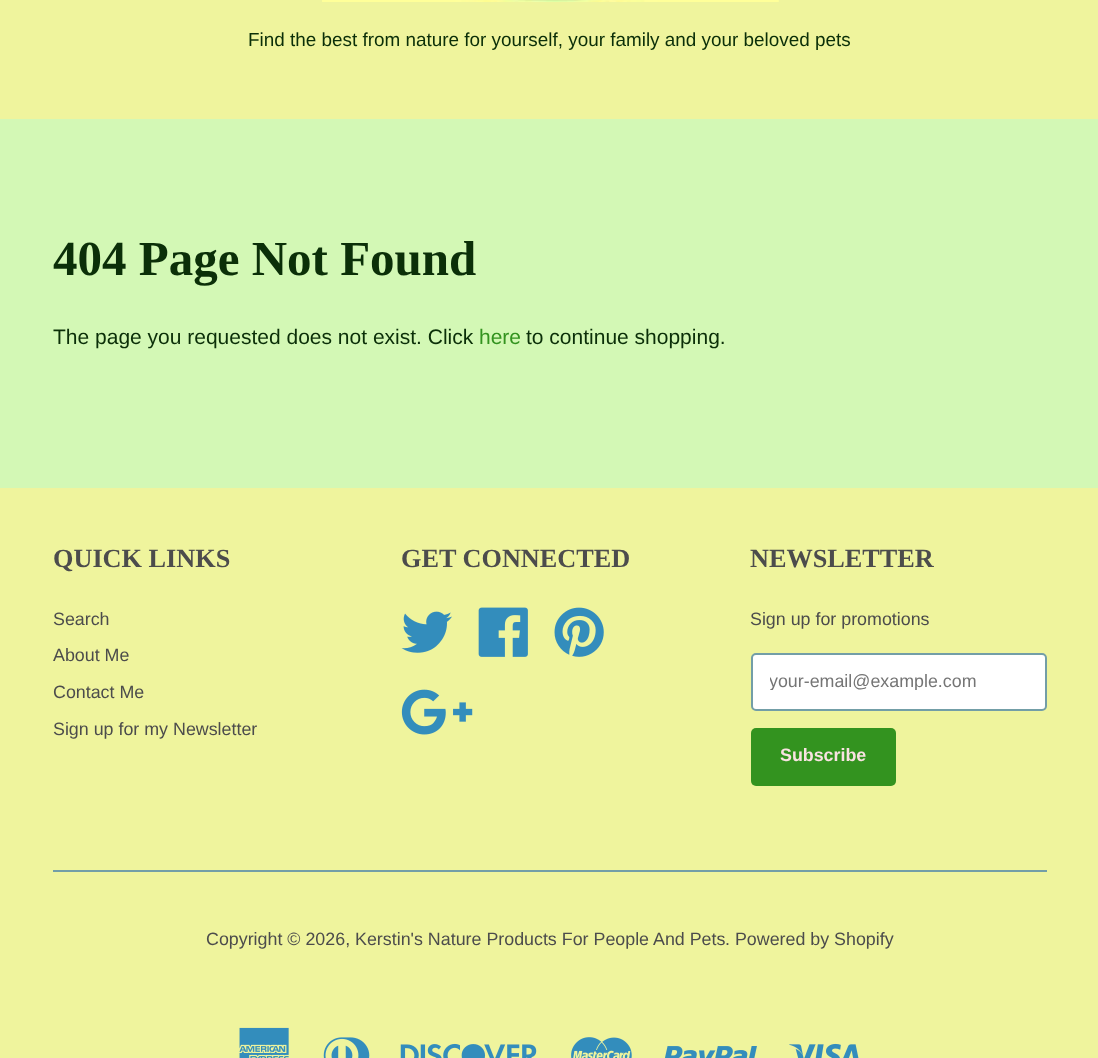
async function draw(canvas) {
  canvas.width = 1098
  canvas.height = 1058
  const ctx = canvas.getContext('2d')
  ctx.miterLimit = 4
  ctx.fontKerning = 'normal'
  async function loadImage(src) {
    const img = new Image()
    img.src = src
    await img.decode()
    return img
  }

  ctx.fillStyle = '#d3f8b5'
  ctx.fillRect(0, 0, 1098, 1058)
  ctx.fillStyle = '#eff49d'
  ctx.fillRect(0, 0, 1098, 119)
  ctx.drawImage(await loadImage('image0.png'), 322, 0, 457, 2)
  ctx.font = '18.9px Liberation Sans'
  ctx.fillStyle = '#0b2f08'
  ctx.fillText('Find the best from nature for yourself, your family and your beloved pets', 248, 46)
  ctx.font = 'bold 49px Liberation Serif'
  ctx.fillText('404 Page Not Found', 53, 275)
  ctx.font = '21px Liberation Sans'
  ctx.fillText('The page you requested does not exist. Click', 53, 344)
  ctx.fillStyle = '#33931f'
  ctx.fillText('here', 479, 344)
  ctx.fillStyle = '#0b2f08'
  ctx.fillText('to continue shopping.', 526, 344)
  ctx.fillStyle = '#eff49d'
  ctx.fillRect(0, 488, 1098, 570)
  ctx.font = 'bold 26.25px Liberation Serif'
  ctx.fillStyle = '#4c4c4c'
  ctx.fillText('QUICK LINKS', 53, 567)
  ctx.font = '17.85px Liberation Sans'
  ctx.fillText('Search', 53, 625)
  ctx.fillText('About Me', 53, 661)
  ctx.fillText('Contact Me', 53, 698)
  ctx.fillText('Sign up for my Newsletter', 53, 735)
  ctx.font = 'bold 26.25px Liberation Serif'
  ctx.fillText('GET CONNECTED', 401, 567)
  ctx.drawImage(await loadImage('image1.png'), 401, 611, 51, 42)
  ctx.drawImage(await loadImage('image2.png'), 478, 607, 50, 50)
  ctx.drawImage(await loadImage('image3.png'), 554, 607, 50, 50)
  ctx.drawImage(await loadImage('image4.png'), 401, 689, 72, 46)
  ctx.fillText('NEWSLETTER', 750, 567)
  ctx.font = '17.85px Liberation Sans'
  ctx.fillText('Sign up for promotions', 750, 625)
  ctx.fillStyle = '#fff'
  ctx.beginPath()
  ctx.roundRect(752, 654, 294, 56, 4)
  ctx.fill()
  ctx.strokeStyle = '#739ea7'
  ctx.lineWidth = 2
  ctx.stroke()
  ctx.save()
  ctx.beginPath()
  ctx.rect(770, 670, 257, 20)
  ctx.clip()
  ctx.fillStyle = '#757575'
  ctx.fillText('your-email@example.com', 769, 687)
  ctx.restore()
  ctx.fillStyle = '#33931f'
  ctx.beginPath()
  ctx.roundRect(751, 728, 145, 58, 5)
  ctx.fill()
  ctx.font = 'bold 17.85px Liberation Sans'
  ctx.fillStyle = '#f9e2e2'
  ctx.fillText('Subscribe', 780, 761)
  ctx.fillStyle = '#739ea7'
  ctx.fillRect(53, 870, 994, 2)
  ctx.font = '17.85px Liberation Sans'
  ctx.fillStyle = '#4c4c4c'
  ctx.fillText('Copyright © 2026, Kerstin\'s Nature Products For People And Pets', 206, 945)
  ctx.fillText('. Powered by Shopify', 725, 945)
  ctx.drawImage(await loadImage('image5.png'), 239, 1027, 50, 31)
  ctx.drawImage(await loadImage('image6.png'), 323, 1037, 47, 21)
  ctx.drawImage(await loadImage('image7.png'), 400, 1043, 137, 15)
  ctx.drawImage(await loadImage('image8.png'), 571, 1037, 61, 21)
  ctx.drawImage(await loadImage('image9.png'), 665, 1046, 92, 12)
  ctx.drawImage(await loadImage('image10.png'), 789, 1043, 70, 15)
}

draw(document.querySelector('canvas'))
